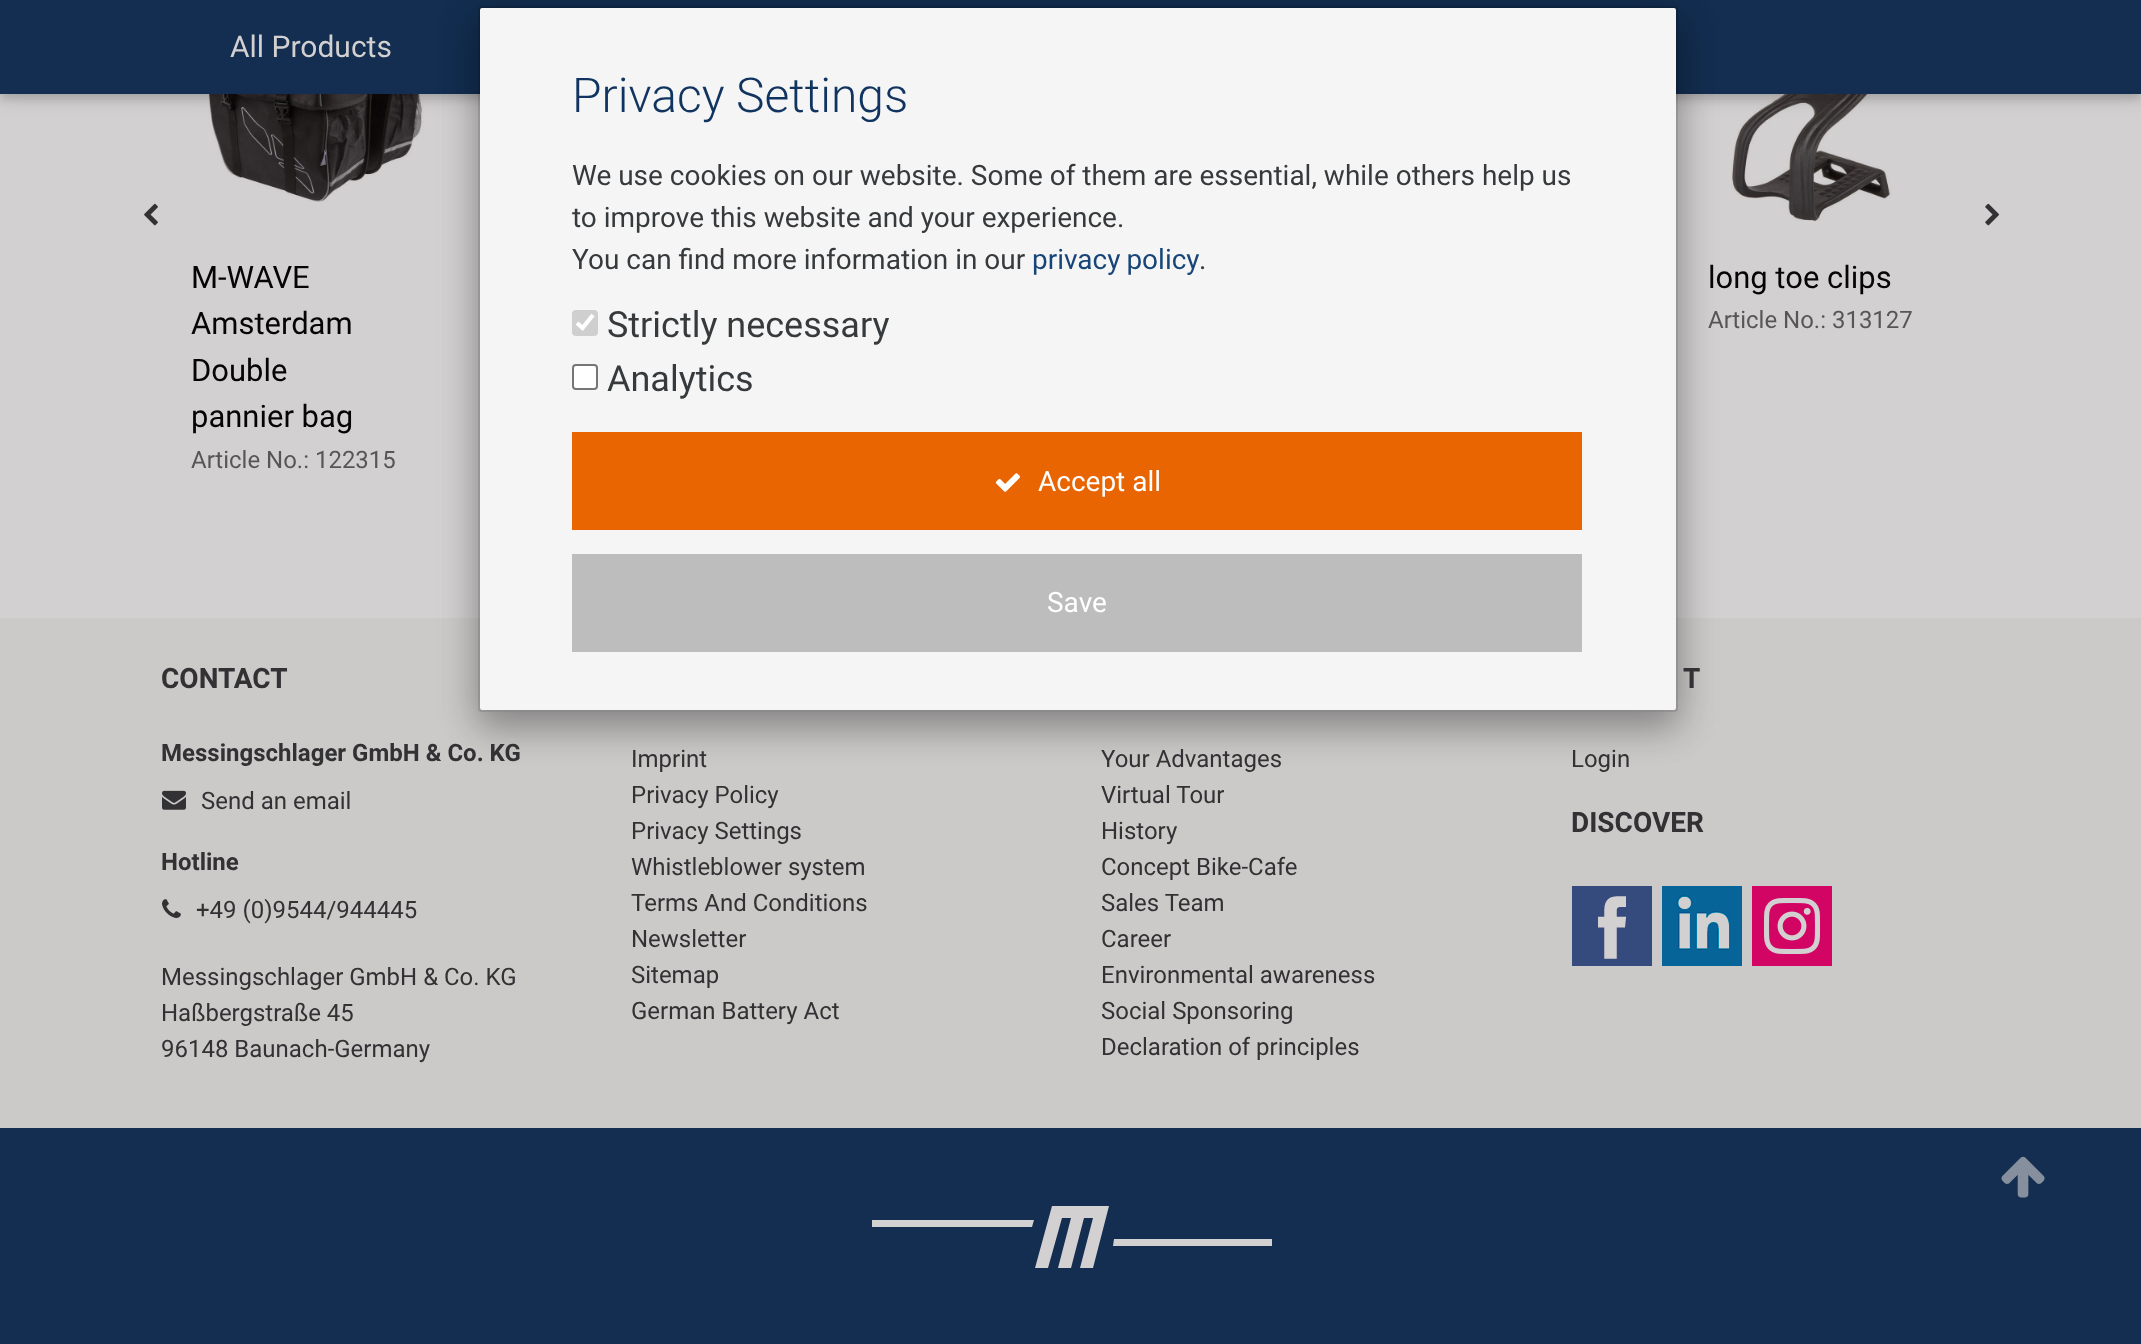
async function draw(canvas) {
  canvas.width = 2141
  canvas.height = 1344
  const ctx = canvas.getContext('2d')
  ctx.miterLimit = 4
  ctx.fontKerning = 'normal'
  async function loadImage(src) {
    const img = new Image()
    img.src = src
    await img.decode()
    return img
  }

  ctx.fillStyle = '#d2d0d0'
  ctx.fillRect(0, 0, 2141, 1344)
  ctx.drawImage(await loadImage('image3.png'), 195, 94, 236, 108)
  ctx.drawImage(await loadImage('image4.png'), 1731, 94, 196, 127)
  ctx.fillStyle = '#0604041f'
  ctx.filter = 'blur(10px)'
  ctx.beginPath()
  ctx.rect(0, 4, 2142, 94)
  ctx.fill()
  ctx.filter = 'none'
  ctx.fillStyle = '#06040429'
  ctx.filter = 'blur(5px)'
  ctx.beginPath()
  ctx.rect(0, 4, 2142, 94)
  ctx.fill()
  ctx.filter = 'none'
  ctx.fillStyle = '#132e50'
  ctx.fillRect(0, 0, 2141, 94)
  ctx.font = '30px Roboto'
  ctx.fillStyle = '#d2d0d0'
  ctx.fillText('All Products', 230, 57)
  ctx.fillStyle = '#ccc9c9'
  ctx.fillRect(0, 618, 2141, 510)
  ctx.fillStyle = '#00000030'
  ctx.filter = 'blur(20px)'
  ctx.beginPath()
  ctx.roundRect(478, 18, 1200, 706, 4)
  ctx.fill()
  ctx.filter = 'none'
  ctx.save()
  ctx.beginPath()
  ctx.moveTo(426, 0)
  ctx.lineTo(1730, 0)
  ctx.lineTo(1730, 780)
  ctx.lineTo(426, 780)
  ctx.closePath()
  ctx.moveTo(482, 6)
  ctx.lineTo(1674, 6)
  ctx.bezierCurveTo(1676, 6, 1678, 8, 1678, 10)
  ctx.lineTo(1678, 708)
  ctx.bezierCurveTo(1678, 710, 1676, 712, 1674, 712)
  ctx.lineTo(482, 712)
  ctx.bezierCurveTo(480, 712, 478, 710, 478, 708)
  ctx.lineTo(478, 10)
  ctx.bezierCurveTo(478, 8, 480, 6, 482, 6)
  ctx.closePath()
  ctx.clip('evenodd')
  ctx.fillStyle = '#00000033'
  ctx.filter = 'blur(17px)'
  ctx.beginPath()
  ctx.roundRect(478, 22, 1200, 706, 4)
  ctx.fill()
  ctx.filter = 'none'
  ctx.restore()
  ctx.fillStyle = '#f5f5f5'
  ctx.beginPath()
  ctx.roundRect(480, 8, 1196, 702, 2)
  ctx.fill()
  ctx.beginPath()
  ctx.roundRect(479, 7, 1198, 704, 3)
  ctx.strokeStyle = '#00000033'
  ctx.lineWidth = 2
  ctx.stroke()
  ctx.font = '300 48px Roboto'
  ctx.fillStyle = '#10345f'
  ctx.fillText('Privacy Settings', 572, 112)
  ctx.font = '28px Roboto'
  ctx.fillStyle = '#373a3c'
  ctx.fillText('We use cookies on our website. Some of them are essential, while others help us', 572, 185)
  ctx.fillText('to improve this website and your experience.', 572, 227)
  ctx.fillText('You can find more information in our', 572, 269)
  ctx.wordSpacing = '-1px'
  ctx.fillStyle = '#184578'
  ctx.fillText('privacy policy', 1032, 269)
  ctx.wordSpacing = '0px'
  ctx.fillStyle = '#373a3c'
  ctx.fillText('.', 1199, 269)
  ctx.fillStyle = '#cfcfcf'
  ctx.beginPath()
  ctx.roundRect(572, 310, 26, 26, 4)
  ctx.fill()
  ctx.beginPath()
  ctx.moveTo(577, 323)
  ctx.lineTo(582.5, 328)
  ctx.lineTo(593, 315)
  ctx.strokeStyle = '#fff'
  ctx.lineWidth = 4.2
  ctx.stroke()
  ctx.font = '36px Roboto'
  ctx.fillStyle = '#373a3c'
  ctx.fillText('Strictly necessary', 607, 337)
  ctx.fillStyle = '#fff'
  ctx.beginPath()
  ctx.roundRect(573, 365, 24, 24, 3)
  ctx.fill()
  ctx.strokeStyle = '#767676'
  ctx.lineWidth = 2
  ctx.stroke()
  ctx.fillStyle = '#373a3c'
  ctx.fillText('Analytics', 607, 391)
  ctx.fillStyle = '#e96502'
  ctx.fillRect(572, 432, 1010, 98)
  ctx.drawImage(await loadImage('image0.png'), 995, 473, 25, 19)
  ctx.font = '28px Roboto'
  ctx.fillStyle = '#fff'
  ctx.fillText('Accept all', 1038, 491)
  ctx.fillStyle = '#bdbdbd'
  ctx.fillRect(572, 554, 1010, 98)
  ctx.fillStyle = '#fff'
  ctx.fillText('Save', 1047, 612)
  ctx.drawImage(await loadImage('image1.png'), 144, 203, 14, 23)
  ctx.drawImage(await loadImage('image2.png'), 1985, 203, 14, 23)
  ctx.font = '31px Roboto'
  ctx.fillStyle = '#060404'
  ctx.fillText('M-WAVE', 191, 288)
  ctx.fillText('Amsterdam', 191, 334)
  ctx.fillText('Double', 191, 381)
  ctx.fillText('pannier bag', 191, 427)
  ctx.font = '24px Roboto'
  ctx.fillStyle = '#575555'
  ctx.fillText('Article No.: 122315', 191, 468)
  ctx.font = '31px Roboto'
  ctx.fillStyle = '#060404'
  ctx.fillText('long toe clips', 1708, 288)
  ctx.font = '24px Roboto'
  ctx.fillStyle = '#575555'
  ctx.fillText('Article No.: 313127', 1708, 328)
  ctx.font = 'bold 28px Roboto'
  ctx.fillStyle = '#323234'
  ctx.fillText('CONTACT', 161, 688)
  ctx.font = 'bold 24px Roboto'
  ctx.fillText('Messingschlager GmbH & Co. KG', 161, 761)
  ctx.drawImage(await loadImage('image5.png'), 162, 790, 24, 20)
  ctx.font = '24px Roboto'
  ctx.fillText('Send an email', 201, 809)
  ctx.font = 'bold 24px Roboto'
  ctx.fillText('Hotline', 161, 870)
  ctx.drawImage(await loadImage('image6.png'), 162, 899, 19, 19)
  ctx.font = '24px Roboto'
  ctx.fillText('+49 (0)9544/944445', 196, 918)
  ctx.fillText('Messingschlager GmbH & Co. KG', 161, 985)
  ctx.fillText('Haßbergstraße 45', 161, 1021)
  ctx.fillText('96148 Baunach-Germany', 161, 1057)
  ctx.fillText('Imprint', 631, 767)
  ctx.fillText('Privacy Policy', 631, 803)
  ctx.fillText('Privacy Settings', 631, 839)
  ctx.fillText('Whistleblower system', 631, 875)
  ctx.fillText('Terms And Conditions', 631, 911)
  ctx.fillText('Newsletter', 631, 947)
  ctx.fillText('Sitemap', 631, 983)
  ctx.fillText('German Battery Act', 631, 1019)
  ctx.fillText('Your Advantages', 1101, 767)
  ctx.fillText('Virtual Tour', 1101, 803)
  ctx.fillText('History', 1101, 839)
  ctx.fillText('Concept Bike-Cafe', 1101, 875)
  ctx.fillText('Sales Team', 1101, 911)
  ctx.fillText('Career', 1101, 947)
  ctx.fillText('Environmental awareness', 1101, 983)
  ctx.fillText('Social Sponsoring', 1101, 1019)
  ctx.fillText('Declaration of principles', 1101, 1055)
  ctx.font = 'bold 28px Roboto'
  ctx.fillText('T', 1683, 688)
  ctx.font = '24px Roboto'
  ctx.fillText('Login', 1571, 767)
  ctx.font = 'bold 28px Roboto'
  ctx.fillText('DISCOVER', 1571, 832)
  ctx.drawImage(await loadImage('image7.png'), 1572, 886, 80, 80)
  ctx.drawImage(await loadImage('image8.png'), 1662, 886, 80, 80)
  ctx.drawImage(await loadImage('image9.png'), 1752, 886, 80, 80)
  ctx.fillStyle = '#132e50'
  ctx.fillRect(0, 1128, 2141, 216)
  ctx.fillStyle = '#d2d0d0'
  ctx.beginPath()
  ctx.moveTo(1034, 1220)
  ctx.lineTo(1032, 1227)
  ctx.lineTo(872, 1227)
  ctx.lineTo(872, 1220)
  ctx.closePath()
  ctx.fill()
  ctx.beginPath()
  ctx.moveTo(1109, 1206)
  ctx.lineTo(1093, 1268)
  ctx.lineTo(1080, 1268)
  ctx.lineTo(1093, 1218)
  ctx.lineTo(1084, 1218)
  ctx.lineTo(1071, 1268)
  ctx.lineTo(1058, 1268)
  ctx.lineTo(1071, 1218)
  ctx.lineTo(1062, 1218)
  ctx.lineTo(1048, 1268)
  ctx.lineTo(1035, 1268)
  ctx.lineTo(1052, 1206)
  ctx.closePath()
  ctx.fill()
  ctx.beginPath()
  ctx.moveTo(1272, 1239)
  ctx.lineTo(1272, 1246)
  ctx.lineTo(1113, 1246)
  ctx.lineTo(1114, 1239)
  ctx.closePath()
  ctx.fill()
  ctx.drawImage(await loadImage('image10.png'), 2001, 1156, 44, 42)
}

draw(document.querySelector('canvas'))
